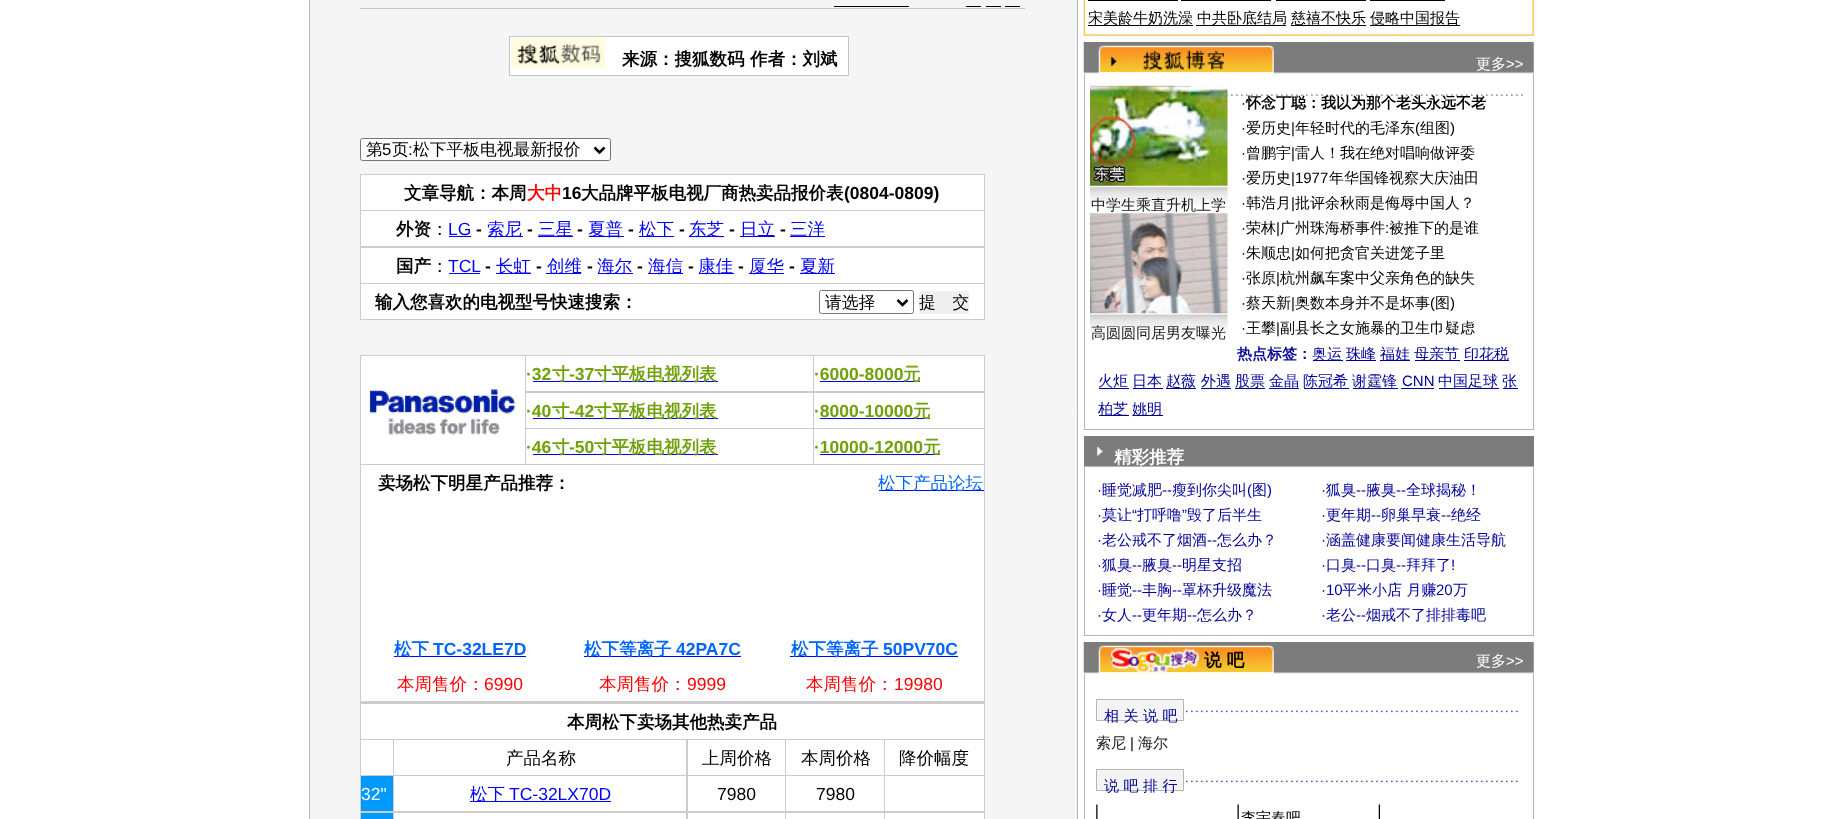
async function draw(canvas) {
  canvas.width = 1841
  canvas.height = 819
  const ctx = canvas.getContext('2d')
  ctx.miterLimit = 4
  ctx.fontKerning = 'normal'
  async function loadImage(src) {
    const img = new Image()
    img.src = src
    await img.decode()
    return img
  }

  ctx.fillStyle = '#fff'
  ctx.fillRect(0, 0, 1841, 819)
  ctx.fillStyle = '#f5f5f5'
  ctx.beginPath()
  ctx.rect(309.5, -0.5, 768, 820)
  ctx.fill()
  ctx.strokeStyle = '#b5b5b5'
  ctx.stroke()
  ctx.fillStyle = '#c5c5c5'
  ctx.fillRect(360, 8, 665, 1)
  ctx.fillStyle = '#000'
  ctx.fillRect(834, 6, 75, 1)
  ctx.fillRect(966, 6, 15, 1)
  ctx.fillRect(986, 6, 15, 1)
  ctx.fillRect(1005, 6, 15, 1)
  ctx.fillStyle = '#fff'
  ctx.beginPath()
  ctx.rect(509.5, 36.5, 339, 39)
  ctx.fill()
  ctx.strokeStyle = '#c5c5c5'
  ctx.stroke()
  ctx.drawImage(await loadImage('image0.png'), 511, 38, 94, 31)
  ctx.font = 'bold 17.5px WenQuanYi Zen Hei'
  ctx.fillStyle = '#000'
  ctx.fillText('来源：搜狐数码', 622, 65)
  ctx.fillText('作者：刘斌', 750, 65)
  ctx.fillStyle = '#fff'
  ctx.beginPath()
  ctx.roundRect(360.5, 138.5, 250, 22, 2)
  ctx.fill()
  ctx.strokeStyle = '#767676'
  ctx.stroke()
  ctx.beginPath()
  ctx.moveTo(594.5, 147.5)
  ctx.lineTo(599.5, 152.5)
  ctx.lineTo(604.5, 147.5)
  ctx.strokeStyle = '#000'
  ctx.lineWidth = 2.5
  ctx.stroke()
  ctx.font = '500 16.75px WenQuanYi Zen Hei'
  ctx.fillStyle = '#000'
  ctx.fillText('第', 366, 155)
  ctx.font = '16.75px Liberation Sans'
  ctx.fillText('5', 382, 155)
  ctx.font = '500 16.75px WenQuanYi Zen Hei'
  ctx.fillText('页', 392, 155)
  ctx.font = '16.75px Liberation Sans'
  ctx.fillText(':', 408, 155)
  ctx.font = '500 16.75px WenQuanYi Zen Hei'
  ctx.fillText('松下平板电视最新报价', 413, 155)
  ctx.fillStyle = '#ccc'
  ctx.fillRect(360, 174, 625, 146)
  ctx.fillStyle = '#fff'
  ctx.fillRect(361, 175, 623, 35)
  ctx.font = 'bold 17.5px WenQuanYi Zen Hei'
  ctx.fillStyle = '#000'
  ctx.fillText('文章导航：本周', 404, 199)
  ctx.fillStyle = '#f00'
  ctx.fillText('大中', 527, 199)
  ctx.font = 'bold 17.5px Liberation Sans'
  ctx.fillStyle = '#000'
  ctx.fillText('16', 562, 199)
  ctx.font = 'bold 17.5px WenQuanYi Zen Hei'
  ctx.fillText('大品牌平板电视厂商热卖品报价表', 581, 199)
  ctx.font = 'bold 17.5px Liberation Sans'
  ctx.fillText('(0804-0809)', 844, 199)
  ctx.fillStyle = '#fff'
  ctx.fillRect(361, 211, 623, 35)
  ctx.font = 'bold 17.5px WenQuanYi Zen Hei'
  ctx.fillStyle = '#000'
  ctx.fillText('外资', 396, 235)
  ctx.font = '500 17.5px WenQuanYi Zen Hei'
  ctx.fillText('：', 431, 235)
  ctx.font = '17.5px Liberation Sans'
  ctx.fillStyle = '#00f'
  ctx.fillText('LG', 448, 235)
  ctx.fillRect(449, 236, 22, 1)
  ctx.font = 'bold 17.5px Liberation Sans'
  ctx.fillStyle = '#000'
  ctx.fillText('-', 476, 235)
  ctx.fillStyle = '#00f'
  ctx.fillRect(488, 236, 35, 1)
  ctx.font = '500 17.5px WenQuanYi Zen Hei'
  ctx.fillText('索尼', 487, 235)
  ctx.font = 'bold 17.5px Liberation Sans'
  ctx.fillStyle = '#000'
  ctx.fillText('-', 527, 235)
  ctx.fillStyle = '#00f'
  ctx.fillRect(538, 236, 35, 1)
  ctx.font = '500 17.5px WenQuanYi Zen Hei'
  ctx.fillText('三星', 538, 235)
  ctx.font = 'bold 17.5px Liberation Sans'
  ctx.fillStyle = '#000'
  ctx.fillText('-', 577, 235)
  ctx.fillStyle = '#00f'
  ctx.fillRect(589, 236, 35, 1)
  ctx.font = '500 17.5px WenQuanYi Zen Hei'
  ctx.fillText('夏普', 588, 235)
  ctx.font = 'bold 17.5px Liberation Sans'
  ctx.fillStyle = '#000'
  ctx.fillText('-', 628, 235)
  ctx.fillStyle = '#00f'
  ctx.fillRect(639, 236, 35, 1)
  ctx.font = '500 17.5px WenQuanYi Zen Hei'
  ctx.fillText('松下', 639, 235)
  ctx.font = 'bold 17.5px Liberation Sans'
  ctx.fillStyle = '#000'
  ctx.fillText('-', 679, 235)
  ctx.fillStyle = '#00f'
  ctx.fillRect(689, 236, 35, 1)
  ctx.font = '500 17.5px WenQuanYi Zen Hei'
  ctx.fillText('东芝', 689, 235)
  ctx.font = 'bold 17.5px Liberation Sans'
  ctx.fillStyle = '#000'
  ctx.fillText('-', 729, 235)
  ctx.fillStyle = '#00f'
  ctx.fillRect(740, 236, 35, 1)
  ctx.font = '500 17.5px WenQuanYi Zen Hei'
  ctx.fillText('日立', 740, 235)
  ctx.font = 'bold 17.5px Liberation Sans'
  ctx.fillStyle = '#000'
  ctx.fillText('-', 780, 235)
  ctx.fillStyle = '#00f'
  ctx.fillRect(790, 236, 35, 1)
  ctx.font = '500 17.5px WenQuanYi Zen Hei'
  ctx.fillText('三洋', 790, 235)
  ctx.fillStyle = '#fff'
  ctx.fillRect(361, 248, 623, 35)
  ctx.font = 'bold 17.5px WenQuanYi Zen Hei'
  ctx.fillStyle = '#000'
  ctx.fillText('国产', 396, 272)
  ctx.font = '500 17.5px WenQuanYi Zen Hei'
  ctx.fillText('：', 431, 272)
  ctx.font = '17.5px Liberation Sans'
  ctx.fillStyle = '#00f'
  ctx.fillText('TCL', 448, 272)
  ctx.fillRect(449, 273, 31, 1)
  ctx.font = 'bold 17.5px Liberation Sans'
  ctx.fillStyle = '#000'
  ctx.fillText('-', 485, 272)
  ctx.fillStyle = '#00f'
  ctx.fillRect(496, 273, 35, 1)
  ctx.font = '500 17.5px WenQuanYi Zen Hei'
  ctx.fillText('长虹', 496, 272)
  ctx.font = 'bold 17.5px Liberation Sans'
  ctx.fillStyle = '#000'
  ctx.fillText('-', 536, 272)
  ctx.fillStyle = '#00f'
  ctx.fillRect(546, 273, 35, 1)
  ctx.font = '500 17.5px WenQuanYi Zen Hei'
  ctx.fillText('创维', 547, 272)
  ctx.font = 'bold 17.5px Liberation Sans'
  ctx.fillStyle = '#000'
  ctx.fillText('-', 587, 272)
  ctx.fillStyle = '#00f'
  ctx.fillRect(598, 273, 35, 1)
  ctx.font = '500 17.5px WenQuanYi Zen Hei'
  ctx.fillText('海尔', 597, 272)
  ctx.font = 'bold 17.5px Liberation Sans'
  ctx.fillStyle = '#000'
  ctx.fillText('-', 637, 272)
  ctx.fillStyle = '#00f'
  ctx.fillRect(648, 273, 35, 1)
  ctx.font = '500 17.5px WenQuanYi Zen Hei'
  ctx.fillText('海信', 648, 272)
  ctx.font = 'bold 17.5px Liberation Sans'
  ctx.fillStyle = '#000'
  ctx.fillText('-', 688, 272)
  ctx.fillStyle = '#00f'
  ctx.fillRect(699, 273, 35, 1)
  ctx.font = '500 17.5px WenQuanYi Zen Hei'
  ctx.fillText('康佳', 698, 272)
  ctx.font = 'bold 17.5px Liberation Sans'
  ctx.fillStyle = '#000'
  ctx.fillText('-', 738, 272)
  ctx.fillStyle = '#00f'
  ctx.fillRect(749, 273, 35, 1)
  ctx.font = '500 17.5px WenQuanYi Zen Hei'
  ctx.fillText('厦华', 749, 272)
  ctx.font = 'bold 17.5px Liberation Sans'
  ctx.fillStyle = '#000'
  ctx.fillText('-', 789, 272)
  ctx.fillStyle = '#00f'
  ctx.fillRect(800, 273, 35, 1)
  ctx.font = '500 17.5px WenQuanYi Zen Hei'
  ctx.fillText('夏新', 800, 272)
  ctx.fillStyle = '#fff'
  ctx.fillRect(361, 284, 623, 35)
  ctx.font = 'bold 17.5px WenQuanYi Zen Hei'
  ctx.fillStyle = '#000'
  ctx.fillText('输入您喜欢的电视型号快速搜索：', 375, 308)
  ctx.beginPath()
  ctx.roundRect(819.5, 290.5, 94, 23, 2)
  ctx.strokeStyle = '#767676'
  ctx.lineWidth = 1
  ctx.stroke()
  ctx.beginPath()
  ctx.moveTo(897.5, 300)
  ctx.lineTo(902.5, 305)
  ctx.lineTo(907.5, 300)
  ctx.strokeStyle = '#000'
  ctx.lineWidth = 2.5
  ctx.stroke()
  ctx.font = '500 16.75px WenQuanYi Zen Hei'
  ctx.fillText('请选择', 825, 308)
  ctx.fillStyle = '#efefef'
  ctx.fillRect(919, 291, 50, 23)
  ctx.fillStyle = '#000'
  ctx.fillText('提　交', 919, 308)
  ctx.fillStyle = '#ccc'
  ctx.fillRect(360, 355, 625, 464)
  ctx.fillStyle = '#fff'
  ctx.fillRect(361, 356, 164, 108)
  ctx.drawImage(await loadImage('image1.png'), 369, 389, 147, 46)
  ctx.fillRect(526, 356, 287, 35)
  ctx.font = 'bold 17.5px Liberation Sans'
  ctx.fillStyle = '#6fa108'
  ctx.fillText('·32', 526, 380)
  ctx.fillStyle = '#00f'
  ctx.fillRect(533, 381, 185, 1)
  ctx.font = 'bold 17.5px WenQuanYi Zen Hei'
  ctx.fillStyle = '#6fa108'
  ctx.fillText('寸', 552, 380)
  ctx.font = 'bold 17.5px Liberation Sans'
  ctx.fillText('-37', 569, 380)
  ctx.font = 'bold 17.5px WenQuanYi Zen Hei'
  ctx.fillText('寸平板电视列表', 594, 380)
  ctx.fillStyle = '#fff'
  ctx.fillRect(814, 356, 170, 35)
  ctx.font = 'bold 17.5px Liberation Sans'
  ctx.fillStyle = '#6fa108'
  ctx.fillText('·6000-8000', 814, 380)
  ctx.fillStyle = '#00f'
  ctx.fillRect(820, 381, 100, 1)
  ctx.font = 'bold 17.5px WenQuanYi Zen Hei'
  ctx.fillStyle = '#6fa108'
  ctx.fillText('元', 903, 380)
  ctx.fillStyle = '#fff'
  ctx.fillRect(526, 393, 287, 35)
  ctx.font = 'bold 17.5px Liberation Sans'
  ctx.fillStyle = '#6fa108'
  ctx.fillText('·40', 526, 417)
  ctx.fillStyle = '#00f'
  ctx.fillRect(533, 418, 185, 1)
  ctx.font = 'bold 17.5px WenQuanYi Zen Hei'
  ctx.fillStyle = '#6fa108'
  ctx.fillText('寸', 552, 417)
  ctx.font = 'bold 17.5px Liberation Sans'
  ctx.fillText('-42', 569, 417)
  ctx.font = 'bold 17.5px WenQuanYi Zen Hei'
  ctx.fillText('寸平板电视列表', 594, 417)
  ctx.fillStyle = '#fff'
  ctx.fillRect(814, 393, 170, 35)
  ctx.font = 'bold 17.5px Liberation Sans'
  ctx.fillStyle = '#6fa108'
  ctx.fillText('·8000-10000', 814, 417)
  ctx.fillStyle = '#00f'
  ctx.fillRect(820, 418, 110, 1)
  ctx.font = 'bold 17.5px WenQuanYi Zen Hei'
  ctx.fillStyle = '#6fa108'
  ctx.fillText('元', 913, 417)
  ctx.fillStyle = '#fff'
  ctx.fillRect(526, 429, 287, 35)
  ctx.font = 'bold 17.5px Liberation Sans'
  ctx.fillStyle = '#6fa108'
  ctx.fillText('·46', 526, 453)
  ctx.fillStyle = '#00f'
  ctx.fillRect(533, 454, 185, 1)
  ctx.font = 'bold 17.5px WenQuanYi Zen Hei'
  ctx.fillStyle = '#6fa108'
  ctx.fillText('寸', 552, 453)
  ctx.font = 'bold 17.5px Liberation Sans'
  ctx.fillText('-50', 569, 453)
  ctx.font = 'bold 17.5px WenQuanYi Zen Hei'
  ctx.fillText('寸平板电视列表', 594, 453)
  ctx.fillStyle = '#fff'
  ctx.fillRect(814, 429, 170, 35)
  ctx.font = 'bold 17.5px Liberation Sans'
  ctx.fillStyle = '#6fa108'
  ctx.fillText('·10000-12000', 814, 453)
  ctx.fillStyle = '#00f'
  ctx.fillRect(820, 454, 120, 1)
  ctx.font = 'bold 17.5px WenQuanYi Zen Hei'
  ctx.fillStyle = '#6fa108'
  ctx.fillText('元', 923, 453)
  ctx.fillStyle = '#fff'
  ctx.fillRect(361, 465, 623, 236)
  ctx.fillStyle = '#000'
  ctx.fillText('卖场松下明星产品推荐：', 378, 489)
  ctx.fillStyle = '#00f'
  ctx.fillRect(879, 490, 105, 1)
  ctx.font = '500 17.5px WenQuanYi Zen Hei'
  ctx.fillStyle = '#06f'
  ctx.fillText('松下产品论坛', 878, 489)
  ctx.fillStyle = '#00f'
  ctx.fillRect(394, 656, 132, 1)
  ctx.font = 'bold 17.5px WenQuanYi Zen Hei'
  ctx.fillStyle = '#06f'
  ctx.fillText('松下', 394, 655)
  ctx.font = 'bold 17.5px Liberation Sans'
  ctx.fillText('TC-32LE7D', 433, 655)
  ctx.fillStyle = '#00f'
  ctx.fillRect(584, 656, 157, 1)
  ctx.font = 'bold 17.5px WenQuanYi Zen Hei'
  ctx.fillStyle = '#06f'
  ctx.fillText('松下等离子', 584, 655)
  ctx.font = 'bold 17.5px Liberation Sans'
  ctx.fillText('42PA7C', 676, 655)
  ctx.fillStyle = '#00f'
  ctx.fillRect(790, 656, 168, 1)
  ctx.font = 'bold 17.5px WenQuanYi Zen Hei'
  ctx.fillStyle = '#06f'
  ctx.fillText('松下等离子', 791, 655)
  ctx.font = 'bold 17.5px Liberation Sans'
  ctx.fillText('50PV70C', 883, 655)
  ctx.font = '500 17.5px WenQuanYi Zen Hei'
  ctx.fillStyle = '#f00'
  ctx.fillText('本周售价：', 397, 690)
  ctx.font = '17.5px Liberation Sans'
  ctx.fillText('6990', 484, 690)
  ctx.font = '500 17.5px WenQuanYi Zen Hei'
  ctx.fillText('本周售价：', 599, 690)
  ctx.font = '17.5px Liberation Sans'
  ctx.fillText('9999', 687, 690)
  ctx.font = '500 17.5px WenQuanYi Zen Hei'
  ctx.fillText('本周售价：', 806, 690)
  ctx.font = '17.5px Liberation Sans'
  ctx.fillText('19980', 894, 690)
  ctx.fillStyle = '#fff'
  ctx.fillRect(361, 704, 623, 35)
  ctx.font = 'bold 17.5px WenQuanYi Zen Hei'
  ctx.fillStyle = '#000'
  ctx.fillText('本周松下卖场其他热卖产品', 567, 728)
  ctx.fillStyle = '#fff'
  ctx.fillRect(361, 740, 32, 35)
  ctx.fillRect(394, 740, 292, 35)
  ctx.font = '500 17.5px WenQuanYi Zen Hei'
  ctx.fillStyle = '#000'
  ctx.fillText('产品名称', 506, 764)
  ctx.fillStyle = '#fff'
  ctx.fillRect(688, 740, 97, 35)
  ctx.fillStyle = '#000'
  ctx.fillText('上周价格', 702, 764)
  ctx.fillStyle = '#fff'
  ctx.fillRect(786, 740, 98, 35)
  ctx.fillStyle = '#000'
  ctx.fillText('本周价格', 801, 764)
  ctx.fillStyle = '#fff'
  ctx.fillRect(885, 740, 99, 35)
  ctx.fillStyle = '#000'
  ctx.fillText('降价幅度', 899, 764)
  ctx.fillStyle = '#09f'
  ctx.fillRect(361, 776, 32, 35)
  ctx.font = '17.5px Liberation Sans'
  ctx.fillStyle = '#fff'
  ctx.fillText('32"', 361, 800)
  ctx.fillRect(394, 776, 292, 35)
  ctx.fillStyle = '#00f'
  ctx.fillRect(470, 801, 141, 1)
  ctx.font = '500 17.5px WenQuanYi Zen Hei'
  ctx.fillText('松下', 470, 800)
  ctx.font = '17.5px Liberation Sans'
  ctx.fillText('TC-32LX70D', 509, 800)
  ctx.fillStyle = '#fff'
  ctx.fillRect(688, 776, 97, 35)
  ctx.fillStyle = '#000'
  ctx.fillText('7980', 717, 800)
  ctx.fillStyle = '#fff'
  ctx.fillRect(786, 776, 98, 35)
  ctx.fillStyle = '#000'
  ctx.fillText('7980', 816, 800)
  ctx.fillStyle = '#fff'
  ctx.fillRect(885, 776, 99, 35)
  ctx.fillStyle = '#09f'
  ctx.fillRect(361, 813, 32, 6)
  ctx.fillStyle = '#fff'
  ctx.fillRect(394, 813, 292, 6)
  ctx.fillRect(688, 813, 97, 6)
  ctx.fillRect(786, 813, 98, 6)
  ctx.fillRect(885, 813, 99, 6)
  ctx.drawImage(await loadImage('image2.png'), 1083, 0, 451, 36)
  ctx.fillStyle = '#000'
  ctx.fillRect(1088, 0, 90, 1)
  ctx.fillRect(1181, 0, 90, 1)
  ctx.fillRect(1276, 0, 90, 1)
  ctx.fillRect(1370, 0, 75, 1)
  ctx.fillRect(1088, 25, 105, 1)
  ctx.font = '500 15px WenQuanYi Zen Hei'
  ctx.fillText('宋美龄牛奶洗澡', 1088, 23)
  ctx.fillRect(1196, 25, 90, 1)
  ctx.fillText('中共卧底结局', 1197, 23)
  ctx.fillText('慈禧不快乐', 1291, 23)
  ctx.fillRect(1291, 25, 75, 1)
  ctx.fillRect(1370, 25, 90, 1)
  ctx.fillText('侵略中国报告', 1370, 23)
  ctx.drawImage(await loadImage('image3.png'), 1083, 42, 451, 32)
  ctx.drawImage(await loadImage('image4.png'), 1143, 50, 81, 20)
  ctx.fillStyle = '#fff'
  ctx.fillText('更多', 1476, 69)
  ctx.font = '15px Liberation Sans'
  ctx.fillText('>>', 1506, 69)
  ctx.fillStyle = '#b5b5b5'
  ctx.fillRect(1533, 74, 1, 356)
  ctx.fillRect(1084, 429, 450, 1)
  ctx.fillRect(1084, 74, 1, 356)
  ctx.drawImage(await loadImage('image5.png'), 1227, 94, 296, 2)
  ctx.drawImage(await loadImage('image6.png'), 1090, 85, 138, 101)
  ctx.drawImage(await loadImage('image7.png'), 1090, 187, 138, 19)
  ctx.font = '500 15px WenQuanYi Zen Hei'
  ctx.fillStyle = '#191919'
  ctx.fillText('中学生乘直升机上学', 1091, 210)
  ctx.drawImage(await loadImage('image8.png'), 1090, 213, 138, 101)
  ctx.drawImage(await loadImage('image9.png'), 1090, 314, 138, 19)
  ctx.fillText('高圆圆同居男友曝光', 1091, 338)
  ctx.font = '15px Liberation Sans'
  ctx.fillStyle = '#000'
  ctx.fillText('·', 1241, 108)
  ctx.font = 'bold 15px WenQuanYi Zen Hei'
  ctx.fillText('怀念丁聪：我以为那个老头永远不老', 1246, 108)
  ctx.font = '15px Liberation Sans'
  ctx.fillText('·', 1241, 133)
  ctx.font = '500 15px WenQuanYi Zen Hei'
  ctx.fillText('爱历史', 1246, 133)
  ctx.font = '15px Liberation Sans'
  ctx.fillText('|', 1291, 133)
  ctx.font = '500 15px WenQuanYi Zen Hei'
  ctx.fillText('年轻时代的毛泽东', 1295, 133)
  ctx.font = '15px Liberation Sans'
  ctx.fillText('(', 1415, 133)
  ctx.font = '500 15px WenQuanYi Zen Hei'
  ctx.fillText('组图', 1420, 133)
  ctx.font = '15px Liberation Sans'
  ctx.fillText(')', 1450, 133)
  ctx.fillText('·', 1241, 158)
  ctx.font = '500 15px WenQuanYi Zen Hei'
  ctx.fillText('曾鹏宇', 1246, 158)
  ctx.font = '15px Liberation Sans'
  ctx.fillText('|', 1291, 158)
  ctx.font = '500 15px WenQuanYi Zen Hei'
  ctx.fillText('雷人！我在绝对唱响做评委', 1295, 158)
  ctx.font = '15px Liberation Sans'
  ctx.fillText('·', 1241, 183)
  ctx.font = '500 15px WenQuanYi Zen Hei'
  ctx.fillText('爱历史', 1246, 183)
  ctx.font = '15px Liberation Sans'
  ctx.fillText('|1977', 1291, 183)
  ctx.font = '500 15px WenQuanYi Zen Hei'
  ctx.fillText('年华国锋视察大庆油田', 1329, 183)
  ctx.font = '15px Liberation Sans'
  ctx.fillText('·', 1241, 208)
  ctx.font = '500 15px WenQuanYi Zen Hei'
  ctx.fillText('韩浩月', 1246, 208)
  ctx.font = '15px Liberation Sans'
  ctx.fillText('|', 1291, 208)
  ctx.font = '500 15px WenQuanYi Zen Hei'
  ctx.fillText('批评余秋雨是侮辱中国人？', 1295, 208)
  ctx.font = '15px Liberation Sans'
  ctx.fillText('·', 1241, 233)
  ctx.font = '500 15px WenQuanYi Zen Hei'
  ctx.fillText('荣林', 1246, 233)
  ctx.font = '15px Liberation Sans'
  ctx.fillText('|', 1276, 233)
  ctx.font = '500 15px WenQuanYi Zen Hei'
  ctx.fillText('广州珠海桥事件', 1280, 233)
  ctx.font = '15px Liberation Sans'
  ctx.fillText(':', 1385, 233)
  ctx.font = '500 15px WenQuanYi Zen Hei'
  ctx.fillText('被推下的是谁', 1389, 233)
  ctx.font = '15px Liberation Sans'
  ctx.fillText('·', 1241, 258)
  ctx.font = '500 15px WenQuanYi Zen Hei'
  ctx.fillText('朱顺忠', 1246, 258)
  ctx.font = '15px Liberation Sans'
  ctx.fillText('|', 1291, 258)
  ctx.font = '500 15px WenQuanYi Zen Hei'
  ctx.fillText('如何把贪官关进笼子里', 1295, 258)
  ctx.font = '15px Liberation Sans'
  ctx.fillText('·', 1241, 283)
  ctx.font = '500 15px WenQuanYi Zen Hei'
  ctx.fillText('张原', 1246, 283)
  ctx.font = '15px Liberation Sans'
  ctx.fillText('|', 1276, 283)
  ctx.font = '500 15px WenQuanYi Zen Hei'
  ctx.fillText('杭州飙车案中父亲角色的缺失', 1280, 283)
  ctx.font = '15px Liberation Sans'
  ctx.fillText('·', 1241, 308)
  ctx.font = '500 15px WenQuanYi Zen Hei'
  ctx.fillText('蔡天新', 1246, 308)
  ctx.font = '15px Liberation Sans'
  ctx.fillText('|', 1291, 308)
  ctx.font = '500 15px WenQuanYi Zen Hei'
  ctx.fillText('奥数本身并不是坏事', 1295, 308)
  ctx.font = '15px Liberation Sans'
  ctx.fillText('(', 1430, 308)
  ctx.font = '500 15px WenQuanYi Zen Hei'
  ctx.fillText('图', 1435, 308)
  ctx.font = '15px Liberation Sans'
  ctx.fillText(')', 1450, 308)
  ctx.fillText('·', 1241, 333)
  ctx.font = '500 15px WenQuanYi Zen Hei'
  ctx.fillText('王攀', 1246, 333)
  ctx.font = '15px Liberation Sans'
  ctx.fillText('|', 1276, 333)
  ctx.font = '500 15px WenQuanYi Zen Hei'
  ctx.fillText('副县长之女施暴的卫生巾疑虑', 1280, 333)
  ctx.font = 'bold 15px WenQuanYi Zen Hei'
  ctx.fillStyle = '#009'
  ctx.fillText('热点标签：', 1237, 359)
  ctx.fillRect(1313, 360, 30, 1)
  ctx.font = '500 15px WenQuanYi Zen Hei'
  ctx.fillText('奥运', 1312, 359)
  ctx.fillRect(1346, 360, 30, 1)
  ctx.fillText('珠峰', 1346, 359)
  ctx.fillRect(1380, 360, 30, 1)
  ctx.fillText('福娃', 1380, 359)
  ctx.fillRect(1415, 360, 45, 1)
  ctx.fillText('母亲节', 1414, 359)
  ctx.fillRect(1464, 360, 45, 1)
  ctx.fillText('印花税', 1464, 359)
  ctx.fillText('火炬', 1098, 386)
  ctx.fillRect(1099, 388, 30, 1)
  ctx.fillText('日本', 1132, 386)
  ctx.fillRect(1133, 388, 30, 1)
  ctx.fillRect(1166, 388, 30, 1)
  ctx.fillText('赵薇', 1166, 386)
  ctx.fillText('外遇', 1201, 386)
  ctx.fillRect(1201, 388, 30, 1)
  ctx.fillRect(1235, 388, 30, 1)
  ctx.fillText('股票', 1235, 386)
  ctx.fillText('金晶', 1269, 386)
  ctx.fillRect(1269, 388, 30, 1)
  ctx.fillText('陈冠希', 1303, 386)
  ctx.fillRect(1304, 388, 45, 1)
  ctx.fillText('谢霆锋', 1352, 386)
  ctx.fillRect(1353, 388, 45, 1)
  ctx.font = '15px Liberation Sans'
  ctx.fillText('CNN', 1402, 386)
  ctx.fillRect(1401, 388, 33, 1)
  ctx.fillRect(1439, 388, 60, 1)
  ctx.font = '500 15px WenQuanYi Zen Hei'
  ctx.fillText('中国足球', 1438, 386)
  ctx.fillText('张', 1502, 386)
  ctx.fillRect(1503, 388, 15, 1)
  ctx.fillRect(1099, 415, 30, 1)
  ctx.fillText('柏芝', 1098, 414)
  ctx.fillRect(1133, 415, 30, 1)
  ctx.fillText('姚明', 1132, 414)
  ctx.fillStyle = '#7c7c7c'
  ctx.fillRect(1084, 436, 450, 30)
  ctx.drawImage(await loadImage('image10.png'), 1097, 446, 6, 10)
  ctx.font = 'bold 17.5px WenQuanYi Zen Hei'
  ctx.fillStyle = '#fff'
  ctx.fillText('精彩推荐', 1114, 463)
  ctx.strokeStyle = '#b5b5b5'
  ctx.lineWidth = 1
  ctx.strokeRect(1084.5, 466.5, 449, 169)
  ctx.font = '15px Liberation Sans'
  ctx.fillStyle = '#009'
  ctx.fillText('·', 1097, 495)
  ctx.font = '500 15px WenQuanYi Zen Hei'
  ctx.fillText('睡觉减肥', 1102, 495)
  ctx.font = '15px Liberation Sans'
  ctx.fillText('--', 1162, 495)
  ctx.font = '500 15px WenQuanYi Zen Hei'
  ctx.fillText('瘦到你尖叫', 1172, 495)
  ctx.font = '15px Liberation Sans'
  ctx.fillText('(', 1247, 495)
  ctx.font = '500 15px WenQuanYi Zen Hei'
  ctx.fillText('图', 1252, 495)
  ctx.font = '15px Liberation Sans'
  ctx.fillText(')', 1267, 495)
  ctx.fillText('·', 1321, 495)
  ctx.font = '500 15px WenQuanYi Zen Hei'
  ctx.fillText('狐臭', 1326, 495)
  ctx.font = '15px Liberation Sans'
  ctx.fillText('--', 1356, 495)
  ctx.font = '500 15px WenQuanYi Zen Hei'
  ctx.fillText('腋臭', 1366, 495)
  ctx.font = '15px Liberation Sans'
  ctx.fillText('--', 1396, 495)
  ctx.font = '500 15px WenQuanYi Zen Hei'
  ctx.fillText('全球揭秘！', 1406, 495)
  ctx.fillText('莫让', 1102, 520)
  ctx.font = '15px Liberation Sans'
  ctx.fillText('“', 1132, 520)
  ctx.font = '500 15px WenQuanYi Zen Hei'
  ctx.fillText('打呼噜', 1137, 520)
  ctx.font = '15px Liberation Sans'
  ctx.fillText('”', 1182, 520)
  ctx.font = '500 15px WenQuanYi Zen Hei'
  ctx.fillText('毁了后半生', 1187, 520)
  ctx.font = '15px Liberation Sans'
  ctx.fillText('·', 1097, 520)
  ctx.fillText('·', 1321, 520)
  ctx.font = '500 15px WenQuanYi Zen Hei'
  ctx.fillText('更年期', 1326, 520)
  ctx.font = '15px Liberation Sans'
  ctx.fillText('--', 1371, 520)
  ctx.font = '500 15px WenQuanYi Zen Hei'
  ctx.fillText('卵巢早衰', 1381, 520)
  ctx.font = '15px Liberation Sans'
  ctx.fillText('--', 1441, 520)
  ctx.font = '500 15px WenQuanYi Zen Hei'
  ctx.fillText('绝经', 1451, 520)
  ctx.font = '15px Liberation Sans'
  ctx.fillText('·', 1097, 545)
  ctx.font = '500 15px WenQuanYi Zen Hei'
  ctx.fillText('老公戒不了烟酒', 1102, 545)
  ctx.font = '15px Liberation Sans'
  ctx.fillText('--', 1207, 545)
  ctx.font = '500 15px WenQuanYi Zen Hei'
  ctx.fillText('怎么办？', 1217, 545)
  ctx.font = '15px Liberation Sans'
  ctx.fillText('·', 1321, 545)
  ctx.font = '500 15px WenQuanYi Zen Hei'
  ctx.fillText('涵盖健康要闻健康生活导航', 1326, 545)
  ctx.font = '15px Liberation Sans'
  ctx.fillText('·', 1097, 570)
  ctx.font = '500 15px WenQuanYi Zen Hei'
  ctx.fillText('狐臭', 1102, 570)
  ctx.font = '15px Liberation Sans'
  ctx.fillText('--', 1132, 570)
  ctx.font = '500 15px WenQuanYi Zen Hei'
  ctx.fillText('腋臭', 1142, 570)
  ctx.font = '15px Liberation Sans'
  ctx.fillText('--', 1172, 570)
  ctx.font = '500 15px WenQuanYi Zen Hei'
  ctx.fillText('明星支招', 1182, 570)
  ctx.font = '15px Liberation Sans'
  ctx.fillText('·', 1321, 570)
  ctx.font = '500 15px WenQuanYi Zen Hei'
  ctx.fillText('口臭', 1326, 570)
  ctx.font = '15px Liberation Sans'
  ctx.fillText('--', 1356, 570)
  ctx.font = '500 15px WenQuanYi Zen Hei'
  ctx.fillText('口臭', 1366, 570)
  ctx.font = '15px Liberation Sans'
  ctx.fillText('--', 1396, 570)
  ctx.font = '500 15px WenQuanYi Zen Hei'
  ctx.fillText('拜拜了', 1406, 570)
  ctx.font = '15px Liberation Sans'
  ctx.fillText('!', 1451, 570)
  ctx.fillText('·', 1097, 595)
  ctx.font = '500 15px WenQuanYi Zen Hei'
  ctx.fillText('睡觉', 1102, 595)
  ctx.font = '15px Liberation Sans'
  ctx.fillText('--', 1132, 595)
  ctx.font = '500 15px WenQuanYi Zen Hei'
  ctx.fillText('丰胸', 1142, 595)
  ctx.font = '15px Liberation Sans'
  ctx.fillText('--', 1172, 595)
  ctx.font = '500 15px WenQuanYi Zen Hei'
  ctx.fillText('罩杯升级魔法', 1182, 595)
  ctx.font = '15px Liberation Sans'
  ctx.fillText('·10', 1321, 595)
  ctx.font = '500 15px WenQuanYi Zen Hei'
  ctx.fillText('平米小店 月赚', 1342, 595)
  ctx.font = '15px Liberation Sans'
  ctx.fillText('20', 1436, 595)
  ctx.font = '500 15px WenQuanYi Zen Hei'
  ctx.fillText('万', 1453, 595)
  ctx.font = '15px Liberation Sans'
  ctx.fillText('·', 1097, 620)
  ctx.font = '500 15px WenQuanYi Zen Hei'
  ctx.fillText('女人', 1102, 620)
  ctx.font = '15px Liberation Sans'
  ctx.fillText('--', 1132, 620)
  ctx.font = '500 15px WenQuanYi Zen Hei'
  ctx.fillText('更年期', 1142, 620)
  ctx.font = '15px Liberation Sans'
  ctx.fillText('--', 1187, 620)
  ctx.font = '500 15px WenQuanYi Zen Hei'
  ctx.fillText('怎么办？', 1197, 620)
  ctx.font = '15px Liberation Sans'
  ctx.fillText('·', 1321, 620)
  ctx.font = '500 15px WenQuanYi Zen Hei'
  ctx.fillText('老公', 1326, 620)
  ctx.font = '15px Liberation Sans'
  ctx.fillText('--', 1356, 620)
  ctx.font = '500 15px WenQuanYi Zen Hei'
  ctx.fillText('烟戒不了排排毒吧', 1366, 620)
  ctx.drawImage(await loadImage('image3.png'), 1083, 642, 451, 32)
  ctx.drawImage(await loadImage('image11.png'), 1111, 648, 88, 24)
  ctx.font = 'bold 17.5px WenQuanYi Zen Hei'
  ctx.fillStyle = '#000'
  ctx.fillText('说 吧', 1204, 666)
  ctx.font = '500 15px WenQuanYi Zen Hei'
  ctx.fillStyle = '#fff'
  ctx.fillText('更多', 1476, 666)
  ctx.font = '15px Liberation Sans'
  ctx.fillText('>>', 1506, 666)
  ctx.fillStyle = '#b5b5b5'
  ctx.fillRect(1533, 674, 1, 145)
  ctx.fillRect(1084, 674, 1, 145)
  ctx.drawImage(await loadImage('image12.png'), 1184, 710, 334, 3)
  ctx.fillStyle = '#f4f4f4'
  ctx.beginPath()
  ctx.rect(1096.5, 699.5, 87, 21)
  ctx.fill()
  ctx.stroke()
  ctx.font = '500 15px WenQuanYi Zen Hei'
  ctx.fillStyle = '#009'
  ctx.fillText('相 关 说 吧', 1104, 721)
  ctx.fillStyle = '#191919'
  ctx.fillText('索尼', 1096, 748)
  ctx.font = '15px Liberation Sans'
  ctx.fillStyle = '#000'
  ctx.fillText('|', 1130, 748)
  ctx.font = '500 15px WenQuanYi Zen Hei'
  ctx.fillStyle = '#191919'
  ctx.fillText('海尔', 1138, 748)
  ctx.drawImage(await loadImage('image12.png'), 1184, 780, 334, 3)
  ctx.fillStyle = '#f4f4f4'
  ctx.beginPath()
  ctx.rect(1096.5, 769.5, 87, 21)
  ctx.fill()
  ctx.stroke()
  ctx.fillStyle = '#009'
  ctx.fillText('说 吧 排 行', 1104, 791)
  ctx.drawImage(await loadImage('image13.png'), 1096, 804, 2, 15)
  ctx.drawImage(await loadImage('image14.png'), 1237, 804, 2, 15)
  ctx.fillStyle = '#000'
  ctx.fillText('李宇春吧', 1241, 823)
  ctx.drawImage(await loadImage('image15.png'), 1378, 804, 2, 15)
}

draw(document.querySelector('canvas'))
